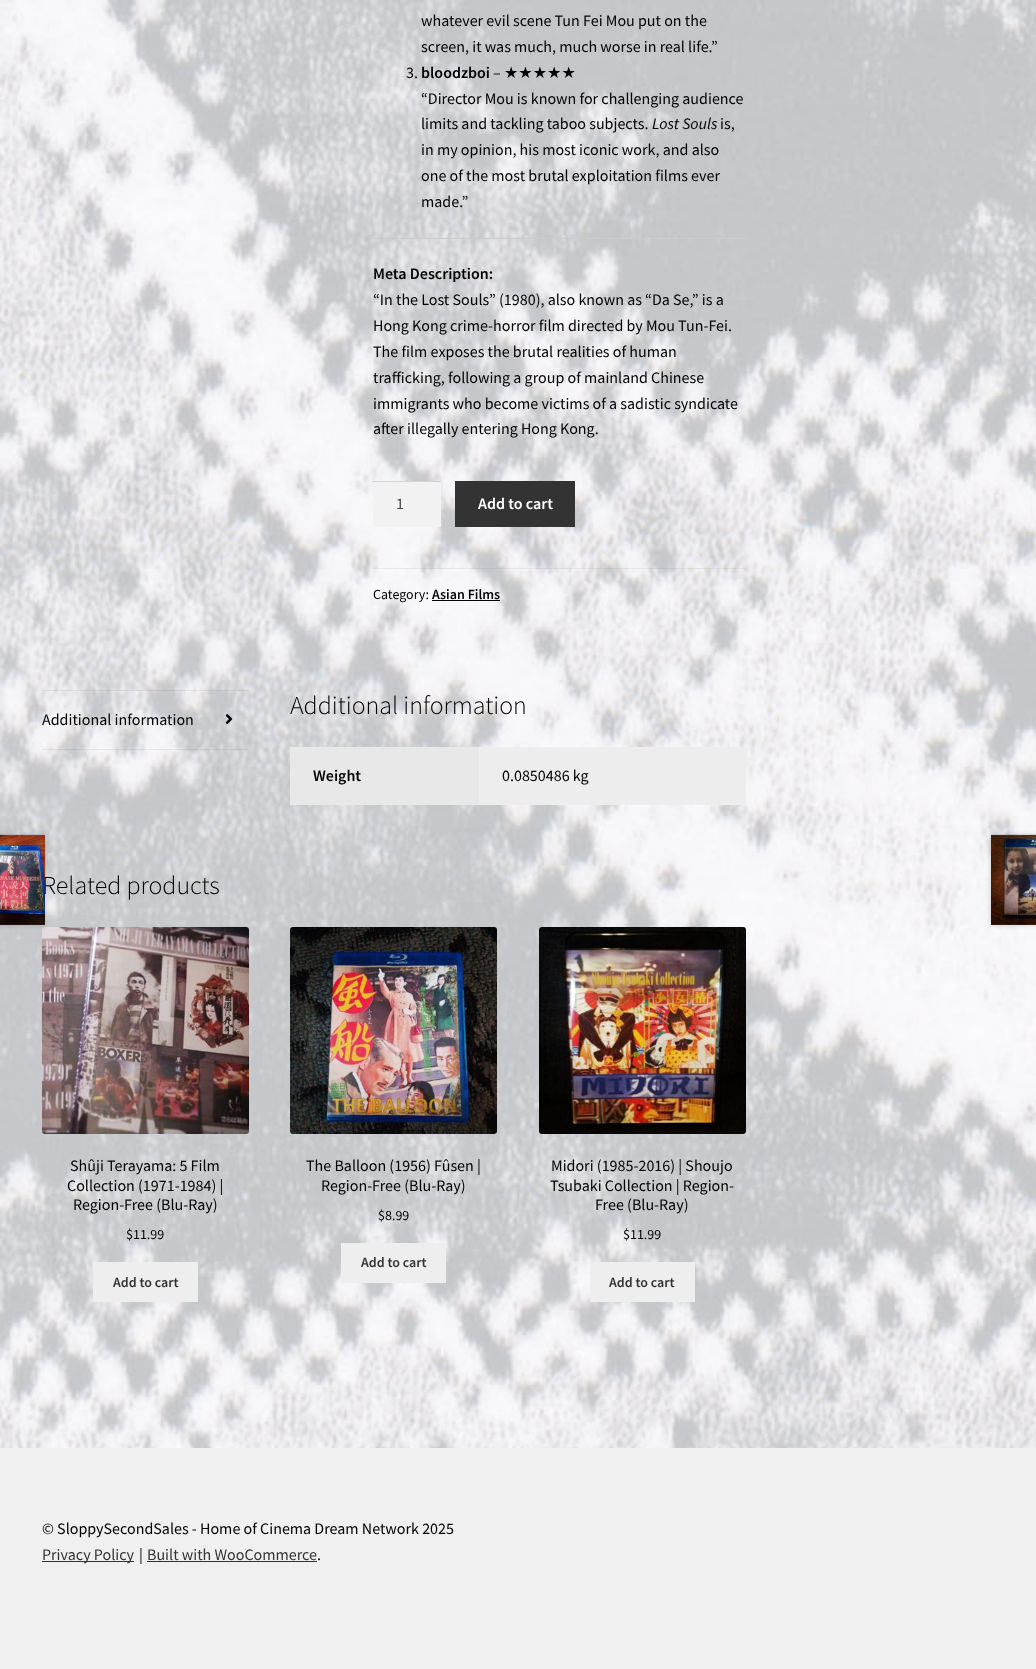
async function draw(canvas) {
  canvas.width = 1036
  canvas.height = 1669
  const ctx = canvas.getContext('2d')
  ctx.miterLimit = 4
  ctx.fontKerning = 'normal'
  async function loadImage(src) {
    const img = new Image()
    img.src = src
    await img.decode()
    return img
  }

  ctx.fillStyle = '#fff'
  ctx.fillRect(0, 0, 1036, 1669)
  ctx.drawImage(await loadImage('image0.png'), 0, 0, 1036, 1448)
  ctx.font = '16px Source Sans Pro'
  ctx.fillStyle = '#000'
  ctx.fillText('whatever evil scene Tun Fei Mou put on the', 421, 26)
  ctx.fillText('screen, it was much, much worse in real life.”', 421, 52)
  ctx.fillText('3.', 406, 78)
  ctx.font = '600 16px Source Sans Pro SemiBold'
  ctx.fillText('bloodzboi', 421, 78)
  ctx.font = '16px Source Sans Pro'
  ctx.fillText('–', 493, 78)
  ctx.font = '16px DejaVu Sans'
  ctx.fillText('★★★★★', 504, 78)
  ctx.font = '16px Source Sans Pro'
  ctx.fillText('“Director Mou is known for challenging audience', 421, 104)
  ctx.fillText('limits and tackling taboo subjects.', 421, 129)
  ctx.font = 'italic 16px Source Sans Pro'
  ctx.fillText('Lost Souls', 652, 129)
  ctx.font = '16px Source Sans Pro'
  ctx.fillText('is,', 720, 129)
  ctx.fillText('in my opinion, his most iconic work, and also', 421, 155)
  ctx.fillText('one of the most brutal exploitation films ever', 421, 181)
  ctx.fillText('made.”', 421, 207)
  ctx.fillStyle = '#ccc'
  ctx.fillRect(373, 238, 373, 1)
  ctx.font = '600 16px Source Sans Pro SemiBold'
  ctx.fillStyle = '#000'
  ctx.fillText('Meta Description:', 373, 279)
  ctx.font = '16px Source Sans Pro'
  ctx.fillText('“In the Lost Souls” (1980), also known as “Da Se,” is a', 373, 305)
  ctx.fillText('Hong Kong crime-horror film directed by Mou Tun-Fei.', 373, 331)
  ctx.fillText('The film exposes the brutal realities of human', 373, 357)
  ctx.fillText('trafficking, following a group of mainland Chinese', 373, 383)
  ctx.fillText('immigrants who become victims of a sadistic syndicate', 373, 409)
  ctx.fillText('after illegally entering Hong Kong.', 373, 434)
  ctx.fillStyle = '#f2f2f2'
  ctx.fillRect(373, 482, 68, 45)
  ctx.fillStyle = '#d4d4d4'
  ctx.fillRect(373, 481, 68, 1)
  ctx.fillStyle = '#43454b'
  ctx.fillText('1', 396, 509)
  ctx.fillStyle = '#333'
  ctx.fillRect(455, 481, 120, 46)
  ctx.font = '600 16px Source Sans Pro SemiBold'
  ctx.fillStyle = '#fff'
  ctx.fillText('Add to cart', 478, 509)
  ctx.fillStyle = '#0000000d'
  ctx.fillRect(373, 568, 373, 1)
  ctx.font = '14px Source Sans Pro'
  ctx.fillStyle = '#000'
  ctx.fillText('Category:', 373, 599)
  ctx.font = '600 14px Source Sans Pro SemiBold'
  ctx.fillText('Asian Films', 432, 599)
  ctx.fillStyle = '#050505'
  ctx.fillRect(432, 600, 68, 1)
  ctx.fillStyle = '#0000000d'
  ctx.fillRect(42, 690, 207, 1)
  ctx.fillRect(42, 749, 207, 1)
  ctx.font = '16px Source Sans Pro'
  ctx.fillStyle = '#000'
  ctx.fillText('Additional information', 42, 725)
  ctx.drawImage(await loadImage('image1.png'), 225, 714, 8, 10)
  ctx.font = '300 25.9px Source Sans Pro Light'
  ctx.fillText('Additional information', 290, 714)
  ctx.fillStyle = '#e8e8e8'
  ctx.fillRect(290, 747, 189, 58)
  ctx.font = '600 16px Source Sans Pro SemiBold'
  ctx.fillStyle = '#000'
  ctx.fillText('Weight', 313, 781)
  ctx.fillStyle = '#ededed'
  ctx.fillRect(479, 747, 267, 58)
  ctx.font = '16px Source Sans Pro'
  ctx.fillStyle = '#000'
  ctx.fillText('0.0850486 kg', 502, 781)
  ctx.drawImage(await loadImage('image4.png'), 42, 927, 207, 207)
  ctx.fillStyle = '#00000033'
  ctx.filter = 'blur(2.5px)'
  ctx.beginPath()
  ctx.rect(-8, 835, 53, 90)
  ctx.fill()
  ctx.filter = 'none'
  ctx.font = '300 25.9px Source Sans Pro Light'
  ctx.fillStyle = '#000'
  ctx.fillText('Related products', 42, 894)
  ctx.drawImage(await loadImage('image2.png'), 0, 834, 45, 91)
  ctx.fillStyle = '#00000033'
  ctx.filter = 'blur(2.5px)'
  ctx.beginPath()
  ctx.rect(991, 835, 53, 90)
  ctx.fill()
  ctx.filter = 'none'
  ctx.drawImage(await loadImage('image3.png'), 991, 834, 45, 91)
  ctx.font = '16px Source Sans Pro'
  ctx.fillStyle = '#000'
  ctx.fillText('Shûji Terayama: 5 Film', 70, 1171)
  ctx.fillText('Collection (1971-1984) |', 67, 1191)
  ctx.fillText('Region-Free (Blu-Ray)', 73, 1210)
  ctx.font = '14px Source Sans Pro'
  ctx.fillText('$11.99', 126, 1239)
  ctx.fillStyle = '#eee'
  ctx.fillRect(93, 1262, 105, 40)
  ctx.font = '600 14px Source Sans Pro SemiBold'
  ctx.fillStyle = '#333'
  ctx.fillText('Add to cart', 113, 1287)
  ctx.drawImage(await loadImage('image5.png'), 290, 927, 207, 207)
  ctx.font = '16px Source Sans Pro'
  ctx.fillStyle = '#000'
  ctx.fillText('The Balloon (1956) Fûsen |', 306, 1171)
  ctx.fillText('Region-Free (Blu-Ray)', 321, 1191)
  ctx.font = '14px Source Sans Pro'
  ctx.fillText('$8.99', 378, 1220)
  ctx.fillStyle = '#eee'
  ctx.fillRect(341, 1243, 105, 40)
  ctx.font = '600 14px Source Sans Pro SemiBold'
  ctx.fillStyle = '#333'
  ctx.fillText('Add to cart', 361, 1267)
  ctx.drawImage(await loadImage('image6.png'), 539, 927, 207, 207)
  ctx.font = '16px Source Sans Pro'
  ctx.fillStyle = '#000'
  ctx.fillText('Midori (1985-2016) | Shoujo', 551, 1171)
  ctx.fillText('Tsubaki Collection | Region-', 550, 1191)
  ctx.fillText('Free (Blu-Ray)', 595, 1210)
  ctx.font = '14px Source Sans Pro'
  ctx.fillText('$11.99', 623, 1239)
  ctx.fillStyle = '#eee'
  ctx.fillRect(590, 1262, 105, 40)
  ctx.font = '600 14px Source Sans Pro SemiBold'
  ctx.fillStyle = '#333'
  ctx.fillText('Add to cart', 609, 1287)
  ctx.fillStyle = '#f0f0f0'
  ctx.fillRect(0, 1448, 1036, 221)
  ctx.font = '16px Source Sans Pro'
  ctx.fillStyle = '#000'
  ctx.fillText('© SloppySecondSales - Home of Cinema Dream Network 2025', 42, 1534)
  ctx.fillStyle = '#333'
  ctx.fillRect(42, 1561, 92, 1)
  ctx.fillText('Privacy Policy', 42, 1560)
  ctx.fillStyle = '#000'
  ctx.fillText('|', 139, 1560)
  ctx.fillStyle = '#333'
  ctx.fillText('Built with WooCommerce', 147, 1560)
  ctx.fillRect(147, 1561, 170, 1)
  ctx.fillStyle = '#000'
  ctx.fillText('.', 317, 1560)
}

draw(document.querySelector('canvas'))
